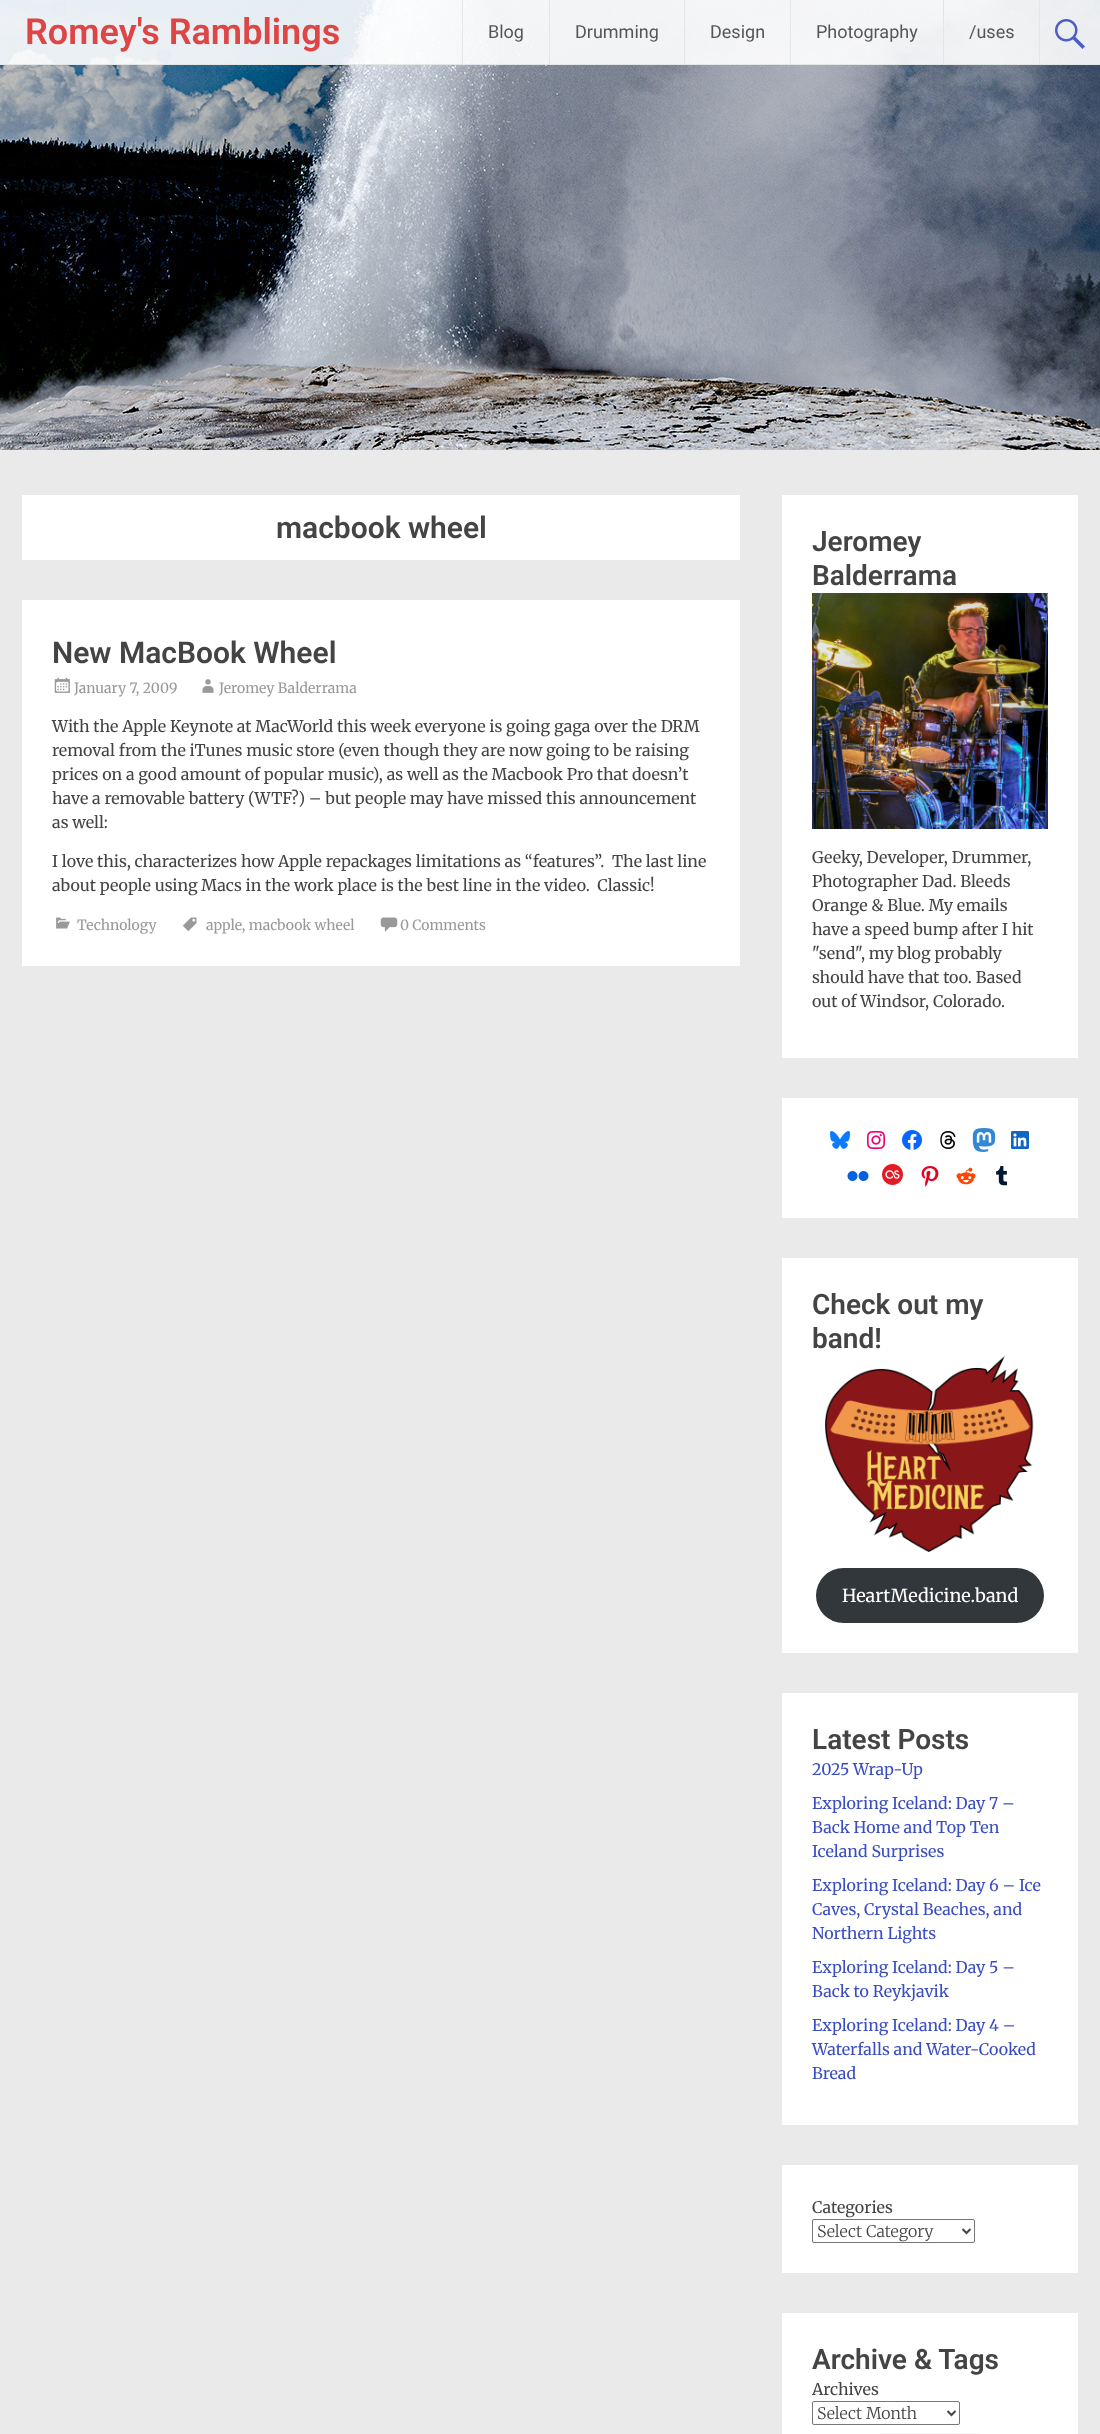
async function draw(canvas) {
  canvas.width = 1100
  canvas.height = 2434
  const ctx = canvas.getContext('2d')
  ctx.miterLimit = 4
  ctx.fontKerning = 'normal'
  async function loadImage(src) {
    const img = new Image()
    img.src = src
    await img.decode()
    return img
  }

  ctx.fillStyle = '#fff'
  ctx.fillRect(0, 0, 1100, 2434)
  ctx.drawImage(await loadImage('image0.png'), 0, 0, 1100, 450)
  ctx.fillStyle = '#ffffffe6'
  ctx.fillRect(0, 0, 1100, 65)
  ctx.fillStyle = '#e1e4e6e6'
  ctx.fillRect(0, 64, 1100, 1)
  ctx.font = '600 36px Roboto'
  ctx.fillStyle = '#de4646'
  ctx.fillText('Romey\'s Ramblings', 25, 44)
  ctx.fillStyle = '#e1e4e6e6'
  ctx.fillRect(462, 0, 1, 64)
  ctx.font = '18px Roboto'
  ctx.fillStyle = '#565656'
  ctx.fillText('Blog', 488, 38)
  ctx.fillStyle = '#e1e4e6e6'
  ctx.fillRect(549, 0, 1, 64)
  ctx.fillStyle = '#565656'
  ctx.fillText('Drumming', 575, 38)
  ctx.fillStyle = '#e1e4e6e6'
  ctx.fillRect(684, 0, 1, 64)
  ctx.fillStyle = '#565656'
  ctx.fillText('Design', 710, 38)
  ctx.fillStyle = '#e3e6e8'
  ctx.fillRect(790, 0, 1, 64)
  ctx.fillStyle = '#565656'
  ctx.fillText('Photography', 816, 38)
  ctx.fillStyle = '#e1e4e6e6'
  ctx.fillRect(943, 0, 1, 64)
  ctx.fillStyle = '#565656'
  ctx.fillText('/uses', 969, 38)
  ctx.fillStyle = '#e1e4e6e6'
  ctx.fillRect(1039, 0, 1, 64)
  ctx.drawImage(await loadImage('image1.png'), 1055, 19, 30, 30)
  ctx.fillStyle = '#eaeaea'
  ctx.fillRect(0, 450, 1100, 1984)
  ctx.fillStyle = '#fff'
  ctx.fillRect(22, 495, 718, 65)
  ctx.font = '600 30px Roboto'
  ctx.fillStyle = '#444'
  ctx.fillText('macbook wheel', 276, 538)
  ctx.fillStyle = '#fff'
  ctx.fillRect(22, 600, 718, 366)
  ctx.fillStyle = '#444'
  ctx.fillText('New MacBook Wheel', 52, 663)
  ctx.drawImage(await loadImage('image2.png'), 54, 677, 16, 16)
  ctx.font = '14px Merriweather'
  ctx.fillStyle = '#999'
  ctx.fillText('January 7, 2009', 74, 693)
  ctx.drawImage(await loadImage('image3.png'), 202, 679, 12, 14)
  ctx.fillText('Jeromey Balderrama', 219, 693)
  ctx.font = '16px Merriweather'
  ctx.fillStyle = '#444'
  ctx.fillText('With the Apple Keynote at MacWorld this week everyone is going gaga over the DRM', 52, 732)
  ctx.fillText('removal from the iTunes music store (even though they are now going to be raising', 52, 756)
  ctx.fillText('prices on a good amount of popular music), as well as the Macbook Pro that doesn’t', 52, 780)
  ctx.fillText('have a removable battery (WTF?) – but people may have missed this announcement', 52, 804)
  ctx.fillText('as well:', 52, 828)
  ctx.fillText('I love this, characterizes how Apple repackages limitations as “features”.  The last line', 52, 867)
  ctx.fillText('about people using Macs in the work place is the best line in the video.  Classic!', 52, 891)
  ctx.drawImage(await loadImage('image4.png'), 56, 917, 14, 12)
  ctx.font = '14px Merriweather'
  ctx.fillStyle = '#999'
  ctx.fillText('Technology', 77, 930)
  ctx.drawImage(await loadImage('image5.png'), 182, 917, 15, 15)
  ctx.fillText('apple, macbook wheel', 206, 930)
  ctx.drawImage(await loadImage('image6.png'), 380, 917, 18, 15)
  ctx.fillText('0 Comments', 400, 930)
  ctx.fillStyle = '#fff'
  ctx.fillRect(782, 495, 296, 563)
  ctx.font = '600 28px Roboto'
  ctx.fillStyle = '#444'
  ctx.fillText('Jeromey', 812, 551)
  ctx.fillText('Balderrama', 812, 585)
  ctx.drawImage(await loadImage('image7.png'), 812, 593, 236, 236)
  ctx.font = '16px Merriweather'
  ctx.fillText('Geeky, Developer, Drummer,', 812, 863)
  ctx.fillText('Photographer Dad. Bleeds', 812, 887)
  ctx.fillText('Orange & Blue. My emails', 812, 911)
  ctx.fillText('have a speed bump after I hit', 812, 935)
  ctx.fillText('"send", my blog probably', 812, 959)
  ctx.fillText('should have that too. Based', 812, 983)
  ctx.fillText('out of Windsor, Colorado.', 812, 1007)
  ctx.fillStyle = '#fff'
  ctx.fillRect(782, 1098, 296, 120)
  ctx.drawImage(await loadImage('image8.png'), 830, 1131, 20, 18)
  ctx.drawImage(await loadImage('image9.png'), 867, 1131, 18, 18)
  ctx.drawImage(await loadImage('image10.png'), 902, 1130, 20, 20)
  ctx.drawImage(await loadImage('image11.png'), 940, 1131, 16, 18)
  ctx.drawImage(await loadImage('image12.png'), 972, 1128, 24, 24)
  ctx.drawImage(await loadImage('image13.png'), 1011, 1131, 18, 18)
  ctx.drawImage(await loadImage('image14.png'), 847, 1171, 22, 10)
  ctx.drawImage(await loadImage('image15.png'), 882, 1164, 21, 21)
  ctx.drawImage(await loadImage('image16.png'), 921, 1166, 18, 21)
  ctx.drawImage(await loadImage('image17.png'), 956, 1167, 20, 18)
  ctx.drawImage(await loadImage('image18.png'), 996, 1166, 12, 20)
  ctx.fillRect(782, 1258, 296, 395)
  ctx.font = '600 28px Roboto'
  ctx.fillStyle = '#444'
  ctx.fillText('Check out my', 812, 1314)
  ctx.fillText('band!', 812, 1348)
  ctx.drawImage(await loadImage('image19.png'), 825, 1356, 209, 196)
  ctx.fillStyle = '#32373c'
  ctx.beginPath()
  ctx.roundRect(816, 1568, 228, 55, 27.5)
  ctx.fill()
  ctx.font = '18px Merriweather'
  ctx.fillStyle = '#fff'
  ctx.fillText('HeartMedicine.band', 842, 1602)
  ctx.fillRect(782, 1693, 296, 432)
  ctx.font = '600 28px Roboto'
  ctx.fillStyle = '#444'
  ctx.fillText('Latest Posts', 812, 1749)
  ctx.font = '16px Merriweather'
  ctx.fillStyle = '#3a4ec1'
  ctx.fillText('2025 Wrap-Up', 812, 1775)
  ctx.fillText('Exploring Iceland: Day 7 –', 812, 1809)
  ctx.fillText('Back Home and Top Ten', 812, 1833)
  ctx.fillText('Iceland Surprises', 812, 1857)
  ctx.fillText('Exploring Iceland: Day 6 – Ice', 812, 1891)
  ctx.fillText('Caves, Crystal Beaches, and', 812, 1915)
  ctx.fillText('Northern Lights', 812, 1939)
  ctx.fillText('Exploring Iceland: Day 5 –', 812, 1973)
  ctx.fillText('Back to Reykjavik', 812, 1997)
  ctx.fillText('Exploring Iceland: Day 4 –', 812, 2031)
  ctx.fillText('Waterfalls and Water-Cooked', 812, 2055)
  ctx.fillText('Bread', 812, 2079)
  ctx.fillStyle = '#fff'
  ctx.fillRect(782, 2165, 296, 108)
  ctx.fillStyle = '#444'
  ctx.fillText('Categories', 812, 2213)
  ctx.beginPath()
  ctx.roundRect(812.5, 2219.5, 162, 23, 1.5)
  ctx.strokeStyle = '#767676'
  ctx.stroke()
  ctx.beginPath()
  ctx.moveTo(962.5, 2229)
  ctx.lineTo(966.5, 2233)
  ctx.lineTo(970.5, 2229)
  ctx.strokeStyle = '#444'
  ctx.lineWidth = 2
  ctx.stroke()
  ctx.font = '300 16px Merriweather'
  ctx.fillText('Select Category', 817, 2237)
  ctx.fillStyle = '#fff'
  ctx.fillRect(782, 2313, 296, 121)
  ctx.font = '600 28px Roboto'
  ctx.fillStyle = '#444'
  ctx.fillText('Archive & Tags', 812, 2369)
  ctx.font = '16px Merriweather'
  ctx.fillText('Archives', 812, 2395)
  ctx.beginPath()
  ctx.roundRect(812.5, 2401.5, 147, 23, 1.5)
  ctx.strokeStyle = '#767676'
  ctx.lineWidth = 1
  ctx.stroke()
  ctx.beginPath()
  ctx.moveTo(947.5, 2411)
  ctx.lineTo(951.5, 2415)
  ctx.lineTo(955.5, 2411)
  ctx.strokeStyle = '#444'
  ctx.lineWidth = 2
  ctx.stroke()
  ctx.font = '300 16px Merriweather'
  ctx.fillText('Select Month', 817, 2419)
  ctx.fillStyle = '#f7f7f7'
  ctx.fillRect(880, 2433, 100, 1)
}

draw(document.querySelector('canvas'))
